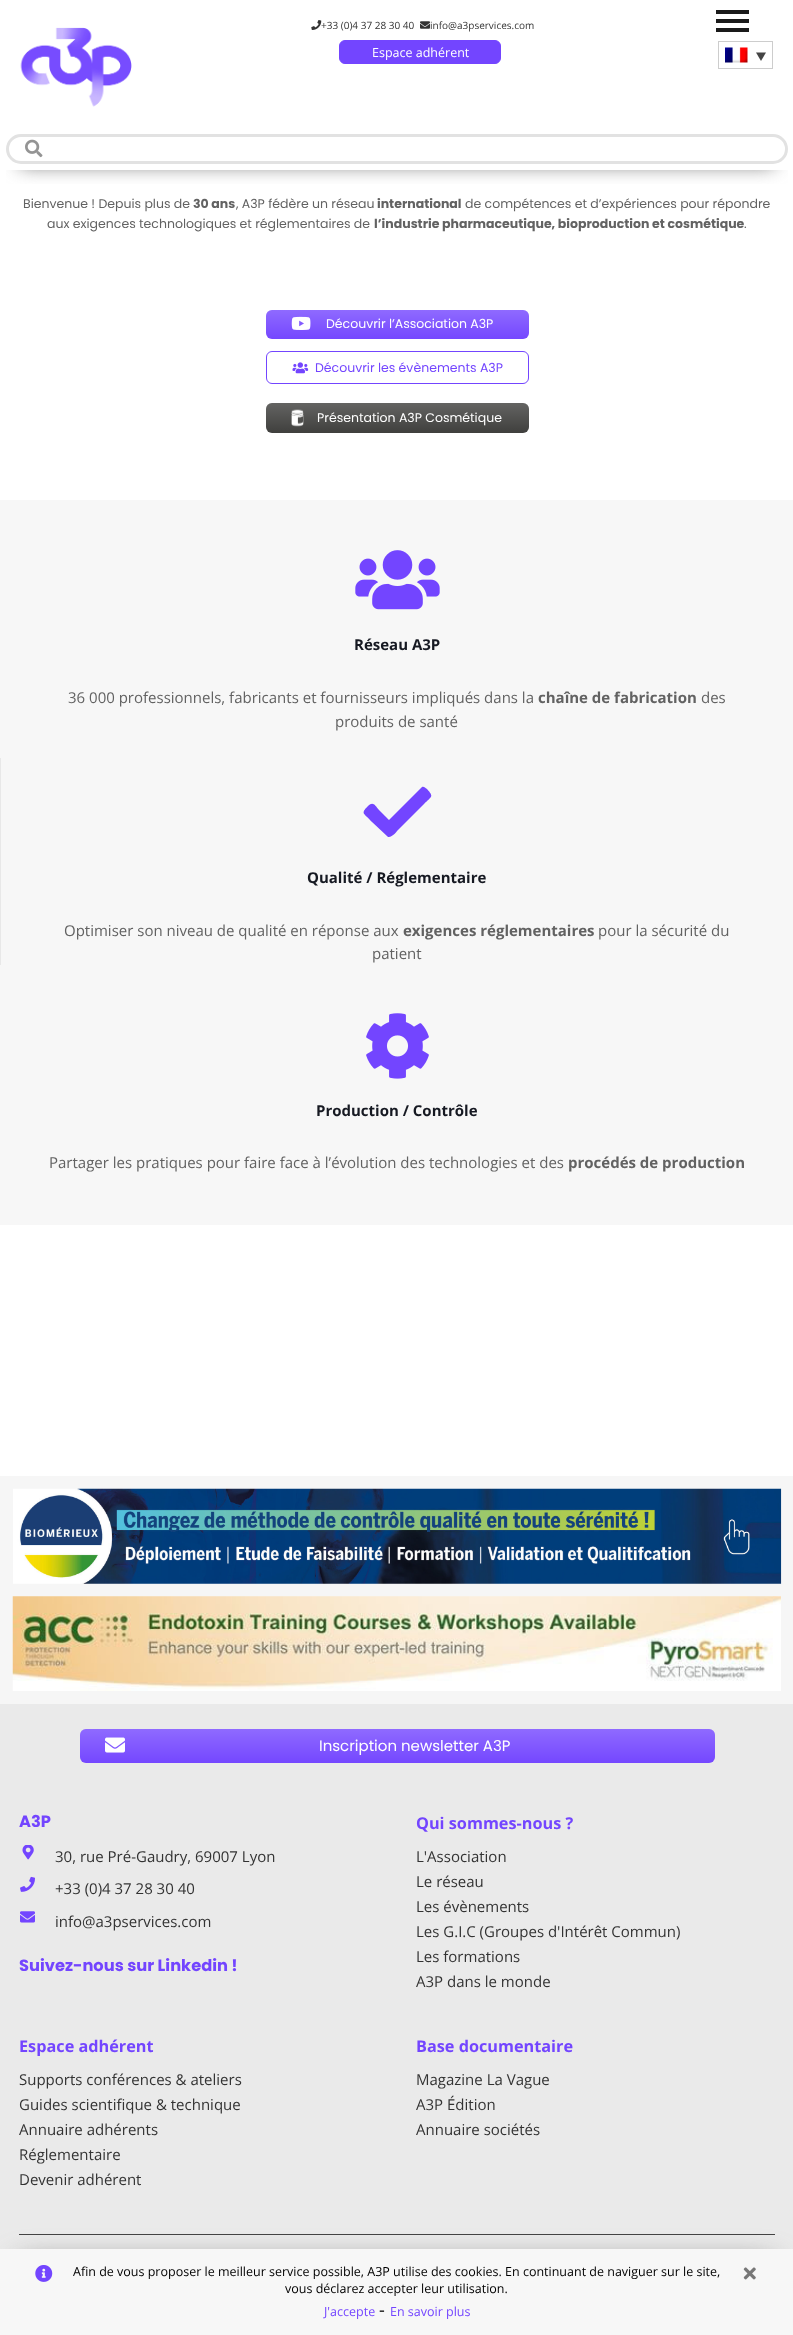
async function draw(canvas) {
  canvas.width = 793
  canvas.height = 2335
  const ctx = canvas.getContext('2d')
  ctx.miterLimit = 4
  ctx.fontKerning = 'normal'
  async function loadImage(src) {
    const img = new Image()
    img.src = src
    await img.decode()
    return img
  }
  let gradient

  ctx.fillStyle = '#fff'
  ctx.fillRect(0, 0, 793, 2335)
  ctx.save()
  ctx.beginPath()
  ctx.rect(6, 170, 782, 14)
  ctx.clip()
  ctx.fillStyle = '#656565'
  ctx.filter = 'blur(9.5px)'
  ctx.beginPath()
  ctx.rect(20, 35, 754, 130)
  ctx.fill()
  ctx.filter = 'none'
  ctx.restore()
  ctx.drawImage(await loadImage('image0.png'), 20, 27, 112, 80)
  ctx.drawImage(await loadImage('image1.png'), 311, 20, 11, 10)
  ctx.font = '10px Open Sans'
  ctx.fillStyle = '#333'
  ctx.fillText('+33 (0)4 37 28 30 40', 321, 29)
  ctx.drawImage(await loadImage('image2.png'), 420, 21, 10, 8)
  ctx.fillText('info@a3pservices.com', 430, 29)
  ctx.fillStyle = '#7345ff'
  ctx.beginPath()
  ctx.roundRect(339.5, 40.5, 161, 23, 5.5)
  ctx.fill()
  ctx.strokeStyle = '#7345ff'
  ctx.stroke()
  ctx.font = '12.5px Open Sans'
  ctx.fillStyle = '#fff'
  ctx.fillText('Espace adhérent', 372, 57)
  ctx.fillStyle = '#1a1a1a'
  ctx.fillRect(716, 10, 33, 4)
  ctx.fillRect(716, 28, 33, 4)
  ctx.fillRect(716, 19, 33, 4)
  ctx.strokeStyle = '#cdcdcd'
  ctx.strokeRect(718.5, 41.5, 54, 27)
  ctx.drawImage(await loadImage('image3.png'), 725, 47, 23, 16)
  ctx.fillStyle = '#444'
  ctx.beginPath()
  ctx.moveTo(756, 52.5)
  ctx.lineTo(766, 52.5)
  ctx.lineTo(761, 61)
  ctx.closePath()
  ctx.fill()
  ctx.beginPath()
  ctx.roundRect(7.5, 135.5, 779, 27, 13.5)
  ctx.strokeStyle = '#e2e2e2'
  ctx.lineWidth = 3
  ctx.stroke()
  ctx.drawImage(await loadImage('image4.png'), 25, 139, 18, 19)
  ctx.font = '12.5px Poppins'
  ctx.fillStyle = '#626262'
  ctx.fillText('Bienvenue ! Depuis plus de', 23, 208)
  ctx.font = 'bold 12.5px Poppins'
  ctx.fillText('30 ans', 193, 208)
  ctx.font = '12.5px Poppins'
  ctx.fillText(', A3P fédère un réseau', 236, 208)
  ctx.font = 'bold 12.5px Poppins'
  ctx.fillText('international', 377, 208)
  ctx.font = '12.5px Poppins'
  ctx.fillText('de compétences et d’expériences pour répondre', 465, 208)
  ctx.fillText('aux exigences technologiques et réglementaires de', 47, 228)
  ctx.font = 'bold 12.5px Poppins'
  ctx.fillText('l’industrie pharmaceutique, bioproduction et cosmétique', 374, 228)
  ctx.font = '12.5px Poppins'
  ctx.fillText('.', 744, 228)
  ctx.fillStyle = '#7345ff'
  ctx.beginPath()
  ctx.roundRect(266, 310, 263, 29, 6)
  ctx.fill()
  gradient = ctx.createLinearGradient(398, 310, 398, 339)
  gradient.addColorStop(0, '#ffffff33')
  gradient.addColorStop(1, '#ffffff03')
  ctx.fillStyle = gradient
  ctx.beginPath()
  ctx.roundRect(266, 310, 263, 29, 6)
  ctx.fill()
  ctx.drawImage(await loadImage('image5.png'), 291, 316, 20, 14)
  ctx.fillStyle = '#fff'
  ctx.fillText('Découvrir l’Association A3P', 326, 328)
  ctx.beginPath()
  ctx.roundRect(266.5, 351.5, 262, 32, 5.5)
  ctx.strokeStyle = '#7345ff'
  ctx.lineWidth = 1
  ctx.stroke()
  ctx.drawImage(await loadImage('image6.png'), 292, 362, 17, 12)
  ctx.fillStyle = '#7345ff'
  ctx.fillText('Découvrir les évènements A3P', 315, 372)
  ctx.fillStyle = '#3d3d3b'
  ctx.beginPath()
  ctx.roundRect(266, 403, 263, 30, 6)
  ctx.fill()
  gradient = ctx.createLinearGradient(398, 403, 398, 433)
  gradient.addColorStop(0, '#ffffff33')
  gradient.addColorStop(1, '#ffffff03')
  ctx.fillStyle = gradient
  ctx.beginPath()
  ctx.roundRect(266, 403, 263, 30, 6)
  ctx.fill()
  ctx.drawImage(await loadImage('image7.png'), 291, 409, 13, 18)
  ctx.fillStyle = '#fff'
  ctx.fillText('Présentation A3P Cosmétique', 317, 422)
  ctx.fillStyle = '#f7f7f7'
  ctx.fillRect(0, 500, 793, 725)
  ctx.drawImage(await loadImage('image8.png'), 355, 550, 85, 60)
  ctx.font = 'bold 15px Open Sans'
  ctx.fillStyle = '#161922'
  ctx.fillText('Réseau A3P', 354, 650)
  ctx.font = '15px Open Sans'
  ctx.fillStyle = '#626262'
  ctx.fillText('36 000 professionnels, fabricants et fournisseurs impliqués dans la', 68, 703)
  ctx.font = 'bold 15px Open Sans'
  ctx.fillText('chaîne de fabrication', 538, 703)
  ctx.font = '15px Open Sans'
  ctx.fillText('des', 701, 703)
  ctx.fillText('produits de santé', 335, 727)
  ctx.fillStyle = '#e8e8e8'
  ctx.fillRect(0, 758, 1, 207)
  ctx.fillStyle = '#7345ff'
  ctx.beginPath()
  ctx.moveTo(387, 836)
  ctx.lineTo(372, 822)
  ctx.bezierCurveTo(364, 813, 360, 814, 368, 806)
  ctx.bezierCurveTo(373, 801, 375, 805, 379, 810)
  ctx.lineTo(389, 820)
  ctx.lineTo(422, 787)
  ctx.bezierCurveTo(424, 786, 425, 788, 427, 789)
  ctx.bezierCurveTo(434, 797, 432, 796, 424, 804)
  ctx.lineTo(398, 830)
  ctx.bezierCurveTo(397, 831, 392, 838, 388, 837)
  ctx.closePath()
  ctx.fill()
  ctx.font = 'bold 15px Open Sans'
  ctx.fillStyle = '#161922'
  ctx.fillText('Qualité / Réglementaire', 307, 883)
  ctx.font = '15px Open Sans'
  ctx.fillStyle = '#626262'
  ctx.fillText('Optimiser son niveau de qualité en réponse aux', 64, 936)
  ctx.font = 'bold 15px Open Sans'
  ctx.fillText('exigences réglementaires', 403, 936)
  ctx.font = '15px Open Sans'
  ctx.fillText('pour la sécurité du', 598, 936)
  ctx.fillText('patient', 372, 959)
  ctx.drawImage(await loadImage('image9.png'), 366, 1013, 63, 66)
  ctx.font = 'bold 15px Open Sans'
  ctx.fillStyle = '#161922'
  ctx.fillText('Production / Contrôle', 316, 1116)
  ctx.font = '15px Open Sans'
  ctx.fillStyle = '#626262'
  ctx.fillText('Partager les pratiques pour faire face à l’évolution des technologies et des', 49, 1168)
  ctx.font = 'bold 15px Open Sans'
  ctx.fillText('procédés de production', 568, 1168)
  ctx.fillStyle = '#f6f6f6'
  ctx.fillRect(0, 1476, 793, 228)
  ctx.drawImage(await loadImage('image10.png'), 13, 1488, 769, 96)
  ctx.drawImage(await loadImage('image11.png'), 12, 1596, 769, 95)
  ctx.fillStyle = '#eaeaea'
  ctx.fillRect(0, 1704, 793, 545)
  ctx.fillStyle = '#7345ff'
  ctx.beginPath()
  ctx.roundRect(80, 1729, 635, 34, 6)
  ctx.fill()
  gradient = ctx.createLinearGradient(398, 1729, 398, 1763)
  gradient.addColorStop(0, '#ffffff33')
  gradient.addColorStop(1, '#ffffff03')
  ctx.fillStyle = gradient
  ctx.beginPath()
  ctx.roundRect(80, 1729, 635, 34, 6)
  ctx.fill()
  ctx.drawImage(await loadImage('image12.png'), 105, 1737, 20, 16)
  ctx.font = '15px Poppins'
  ctx.fillStyle = '#fff'
  ctx.fillText('Inscription newsletter A3P', 319, 1751)
  ctx.font = 'bold 16.25px Poppins'
  ctx.fillStyle = '#7345ff'
  ctx.fillText('A3P', 19, 1827)
  ctx.drawImage(await loadImage('image13.png'), 22, 1845, 12, 15)
  ctx.font = '15px Open Sans'
  ctx.fillStyle = '#333'
  ctx.fillText('30, rue Pré-Gaudry, 69007 Lyon', 55, 1862)
  ctx.drawImage(await loadImage('image14.png'), 20, 1876, 15, 16)
  ctx.fillText('+33 (0)4 37 28 30 40', 55, 1894)
  ctx.drawImage(await loadImage('image15.png'), 20, 1911, 15, 12)
  ctx.fillText('info@a3pservices.com', 55, 1927)
  ctx.font = 'bold 16.25px Poppins'
  ctx.fillStyle = '#7345ff'
  ctx.fillText('Suivez-nous sur Linkedin !', 19, 1971)
  ctx.font = 'bold 16.25px Open Sans'
  ctx.fillText('Qui sommes-nous ?', 416, 1829)
  ctx.font = '15px Open Sans'
  ctx.fillStyle = '#333'
  ctx.fillText('L\'Association', 416, 1862)
  ctx.fillText('Le réseau', 416, 1887)
  ctx.fillText('Les évènements', 416, 1912)
  ctx.fillText('Les G.I.C (Groupes d\'Intérêt Commun)', 416, 1937)
  ctx.fillText('Les formations', 416, 1962)
  ctx.fillText('A3P dans le monde', 416, 1987)
  ctx.font = 'bold 16.25px Open Sans'
  ctx.fillStyle = '#7345ff'
  ctx.fillText('Espace adhérent', 19, 2052)
  ctx.font = '15px Open Sans'
  ctx.fillStyle = '#333'
  ctx.fillText('Supports conférences & ateliers', 19, 2085)
  ctx.fillText('Guides scientifique & technique', 19, 2110)
  ctx.fillText('Annuaire adhérents', 19, 2135)
  ctx.fillText('Réglementaire', 19, 2160)
  ctx.fillText('Devenir adhérent', 19, 2185)
  ctx.font = 'bold 16.25px Open Sans'
  ctx.fillStyle = '#7345ff'
  ctx.fillText('Base documentaire', 416, 2052)
  ctx.font = '15px Open Sans'
  ctx.fillStyle = '#333'
  ctx.fillText('Magazine La Vague', 416, 2085)
  ctx.fillText('A3P Édition', 416, 2110)
  ctx.fillText('Annuaire sociétés', 416, 2135)
  ctx.fillStyle = '#444'
  ctx.fillRect(19, 2234, 756, 1)
  ctx.fillStyle = '#656565'
  ctx.filter = 'blur(15px)'
  ctx.beginPath()
  ctx.rect(20, 2264, 754, 46)
  ctx.fill()
  ctx.filter = 'none'
  ctx.fillStyle = '#f7f7f7'
  ctx.fillRect(0, 2249, 793, 86)
  ctx.drawImage(await loadImage('image16.png'), 35, 2265, 18, 17)
  ctx.font = '12.5px Open Sans'
  ctx.fillStyle = '#000'
  ctx.fillText('Afin de vous proposer le meilleur service possible, A3P utilise des cookies. En continuant de naviguer sur le site,', 73, 2276)
  ctx.fillText('vous déclarez accepter leur utilisation.', 285, 2293)
  ctx.fillStyle = '#7345ff'
  ctx.fillText('J\'accepte', 324, 2316)
  ctx.font = '18px Open Sans'
  ctx.fillStyle = '#000'
  ctx.fillText('-', 379, 2316)
  ctx.font = '12.5px Open Sans'
  ctx.fillStyle = '#7345ff'
  ctx.fillText('En savoir plus', 390, 2316)
  ctx.drawImage(await loadImage('image17.png'), 743, 2267, 13, 13)
}

draw(document.querySelector('canvas'))
